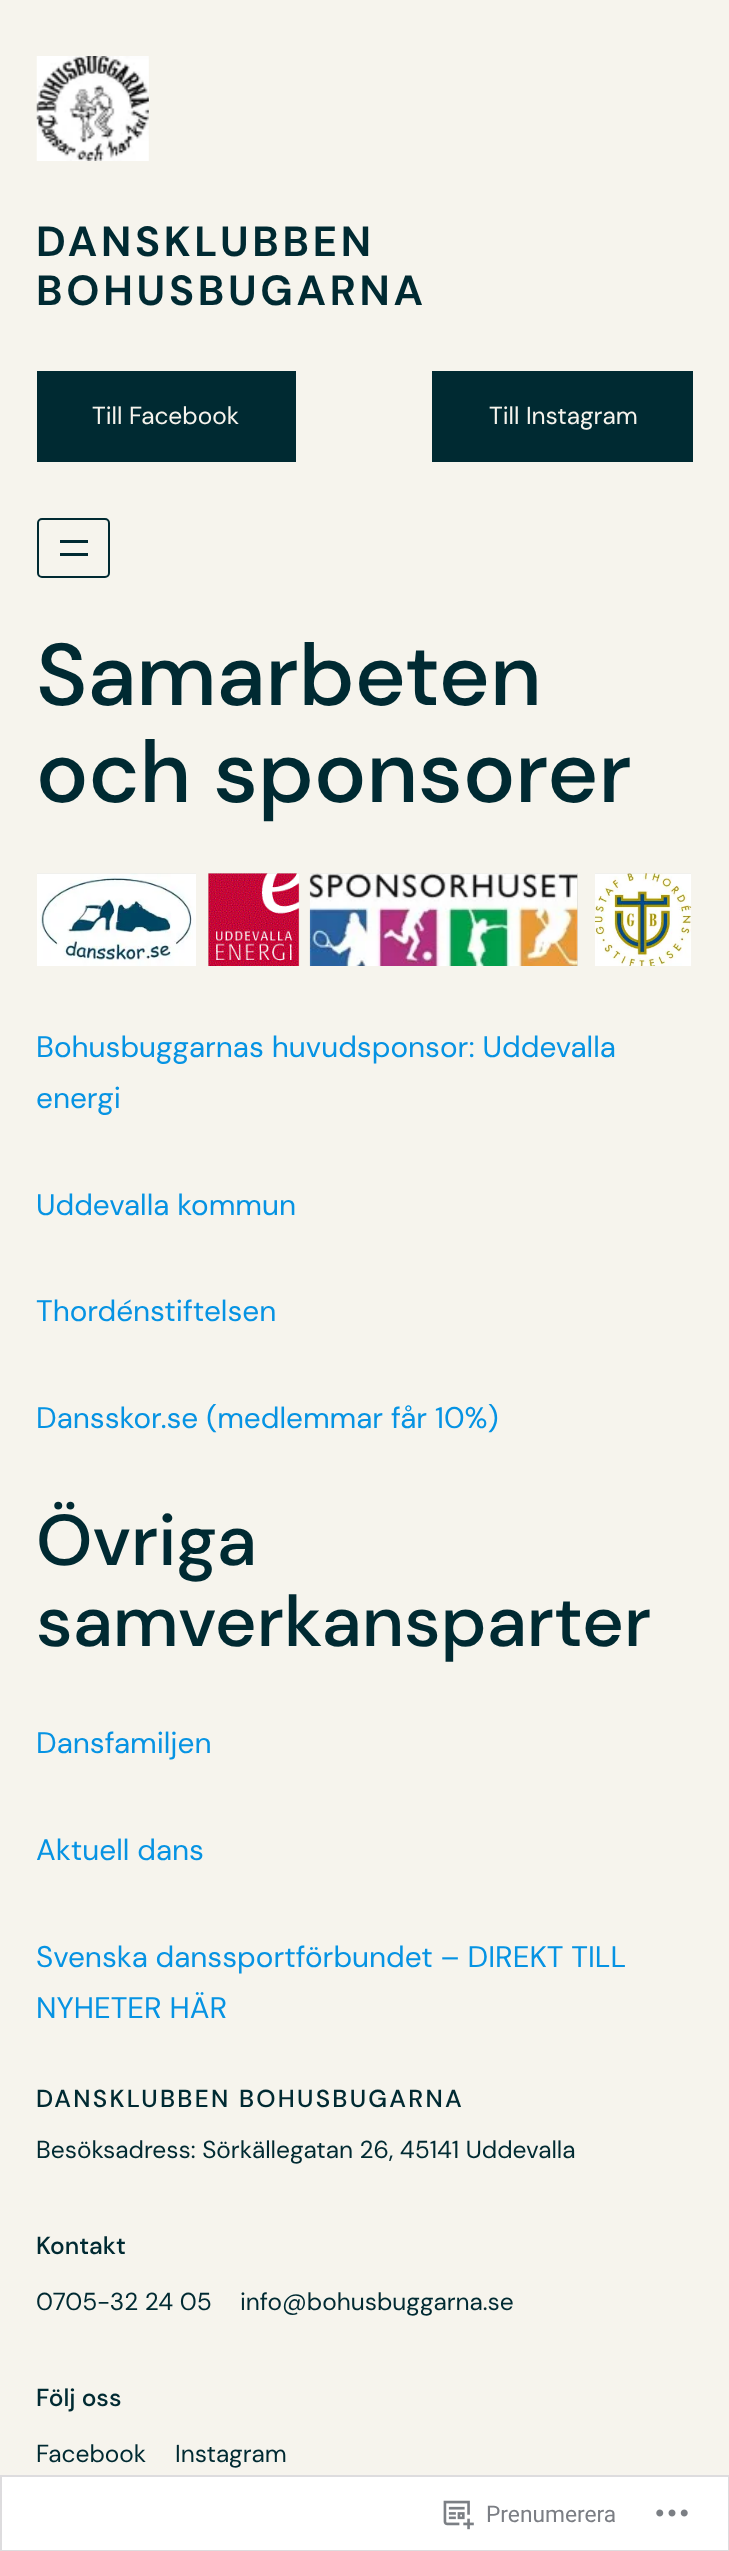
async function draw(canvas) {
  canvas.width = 729
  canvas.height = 2551
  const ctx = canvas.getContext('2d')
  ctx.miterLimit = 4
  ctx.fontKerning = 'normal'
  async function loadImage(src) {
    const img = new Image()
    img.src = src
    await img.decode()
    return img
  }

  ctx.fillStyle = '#f6f4ed'
  ctx.fillRect(0, 0, 729, 2551)
  ctx.drawImage(await loadImage('image0.png'), 36, 56, 113, 105)
  ctx.letterSpacing = '3.75px'
  ctx.font = 'bold 42px DM Sans'
  ctx.fillStyle = '#002a32'
  ctx.fillText('DANSKLUBBEN', 36, 256)
  ctx.fillText('BOHUSBUGARNA', 36, 305)
  ctx.fillRect(37, 371, 259, 91)
  ctx.letterSpacing = '0px'
  ctx.font = '24.5px DM Sans'
  ctx.fillStyle = '#f6f4ed'
  ctx.fillText('Till Facebook', 92, 424)
  ctx.fillStyle = '#002a32'
  ctx.fillRect(432, 371, 261, 91)
  ctx.fillStyle = '#f6f4ed'
  ctx.fillText('Till Instagram', 489, 424)
  ctx.beginPath()
  ctx.roundRect(38, 519, 71, 58, 4)
  ctx.strokeStyle = '#002a32'
  ctx.lineWidth = 2
  ctx.stroke()
  ctx.fillStyle = '#002a32'
  ctx.fillRect(60, 540, 28, 3)
  ctx.fillRect(60, 553, 28, 3)
  ctx.font = '500 87.5px DM Sans'
  ctx.fillText('Samarbeten', 36, 705)
  ctx.fillText('och sponsorer', 36, 802)
  ctx.fillStyle = '#dddcd5'
  ctx.fillRect(37, 873, 159, 1)
  ctx.drawImage(await loadImage('image1.png'), 37, 873, 159, 93)
  ctx.fillRect(208, 873, 91, 93)
  ctx.drawImage(await loadImage('image2.png'), 208, 873, 92, 93)
  ctx.fillRect(310, 873, 268, 93)
  ctx.drawImage(await loadImage('image3.png'), 309, 873, 269, 93)
  ctx.fillRect(595, 873, 96, 1)
  ctx.drawImage(await loadImage('image4.png'), 595, 873, 97, 93)
  ctx.font = '29.75px DM Sans'
  ctx.fillStyle = '#0693e3'
  ctx.fillText('Bohusbuggarnas huvudsponsor: Uddevalla', 36, 1057)
  ctx.fillText('energi', 36, 1108)
  ctx.fillText('Uddevalla kommun', 36, 1215)
  ctx.fillText('Thordénstiftelsen', 36, 1321)
  ctx.fillText('Dansskor.se (medlemmar får 10%)', 36, 1428)
  ctx.font = '500 71.75px DM Sans'
  ctx.fillStyle = '#002a32'
  ctx.fillText('Övriga', 36, 1565)
  ctx.fillText('samverkansparter', 36, 1646)
  ctx.font = '29.75px DM Sans'
  ctx.fillStyle = '#0693e3'
  ctx.fillText('Dansfamiljen', 36, 1753)
  ctx.fillText('Aktuell dans', 36, 1860)
  ctx.fillText('Svenska danssportförbundet – DIREKT TILL', 36, 1967)
  ctx.fillText('NYHETER HÄR', 36, 2018)
  ctx.letterSpacing = '2.25px'
  ctx.font = '500 24.5px DM Sans'
  ctx.fillStyle = '#002a32'
  ctx.fillText('DANSKLUBBEN BOHUSBUGARNA', 36, 2107)
  ctx.letterSpacing = '0px'
  ctx.font = '24.5px DM Sans'
  ctx.fillText('Besöksadress: Sörkällegatan 26, 45141 Uddevalla', 36, 2158)
  ctx.font = '500 24.5px DM Sans'
  ctx.fillText('Kontakt', 36, 2254)
  ctx.font = '24.5px DM Sans'
  ctx.fillText('0705-32 24 05', 36, 2310)
  ctx.fillText('info@bohusbuggarna.se', 240, 2310)
  ctx.font = '500 24.5px DM Sans'
  ctx.fillText('Följ oss', 36, 2406)
  ctx.font = '24.5px DM Sans'
  ctx.fillText('Facebook', 36, 2462)
  ctx.fillText('Instagram', 175, 2462)
  ctx.fillStyle = '#fff'
  ctx.beginPath()
  ctx.rect(1, 2476, 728, 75)
  ctx.fill()
  ctx.strokeStyle = '#dddcde'
  ctx.stroke()
  ctx.drawImage(await loadImage('image5.png'), 443, 2500, 31, 30)
  ctx.font = '22.75px Roboto'
  ctx.fillStyle = '#7b7e84'
  ctx.fillText('Prenumerera', 486, 2522)
  ctx.drawImage(await loadImage('image6.png'), 656, 2509, 32, 8)
}

draw(document.querySelector('canvas'))
